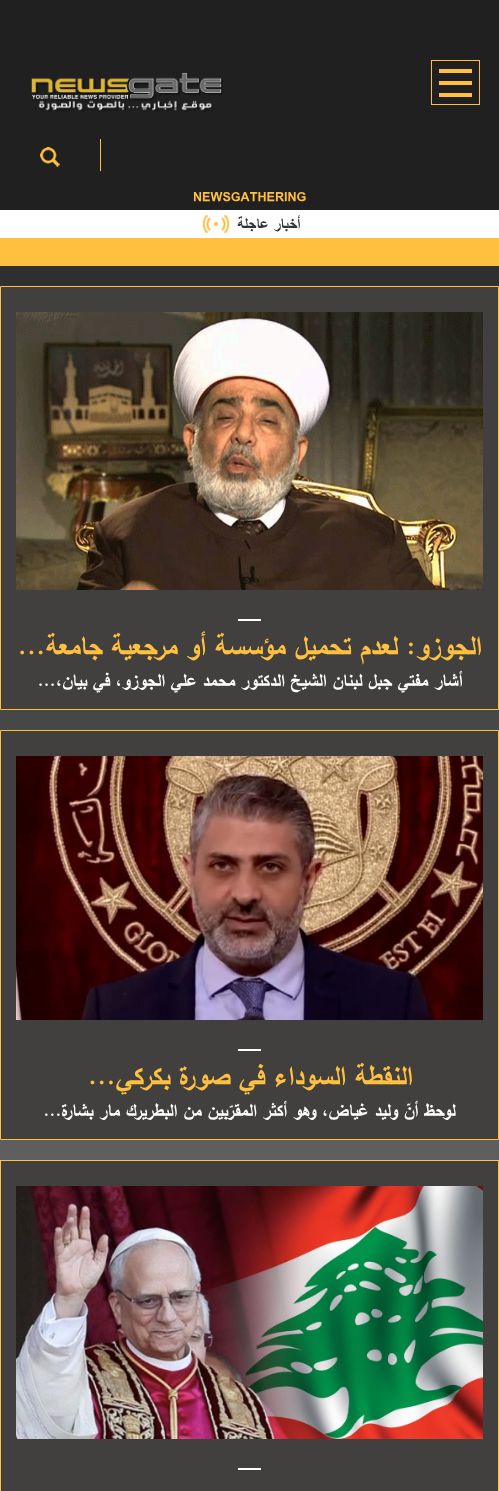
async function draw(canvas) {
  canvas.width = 499
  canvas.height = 1491
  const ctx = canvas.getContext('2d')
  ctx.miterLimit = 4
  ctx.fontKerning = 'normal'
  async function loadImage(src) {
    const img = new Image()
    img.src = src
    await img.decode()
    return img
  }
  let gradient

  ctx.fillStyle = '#fff'
  ctx.fillRect(0, 0, 499, 1491)
  gradient = ctx.createLinearGradient(249, 0, 250, 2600)
  gradient.addColorStop(0, '#202020')
  gradient.addColorStop(1, '#adadad')
  ctx.fillStyle = gradient
  ctx.fillRect(0, 266, 499, 894)
  ctx.fillStyle = '#202020'
  ctx.fillRect(0, 0, 499, 210)
  ctx.strokeStyle = '#ffbf3f'
  ctx.strokeRect(431.5, 60.5, 48, 44)
  ctx.fillStyle = '#ffbf3f'
  ctx.fillRect(439, 69, 33, 4)
  ctx.fillRect(439, 81, 33, 4)
  ctx.fillRect(439, 93, 33, 4)
  ctx.drawImage(await loadImage('image0.png'), 31, 72, 192, 40)
  ctx.fillRect(100, 139, 1, 32)
  ctx.drawImage(await loadImage('image1.png'), 40, 147, 20, 20)
  ctx.font = 'bold 14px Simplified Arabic'
  ctx.fillText('NEWSGATHERING', 193, 202)
  ctx.fillRect(0, 238, 499, 28)
  ctx.direction = 'rtl'
  ctx.font = 'bold 16px Simplified Arabic'
  ctx.fillStyle = '#333'
  ctx.fillText('أخبار عاجلة', 300, 229)
  ctx.drawImage(await loadImage('image2.png'), 202, 210, 28, 27)
  ctx.fillStyle = '#41403f'
  ctx.beginPath()
  ctx.rect(0.5, 286.5, 498, 423)
  ctx.fill()
  ctx.stroke()
  ctx.drawImage(await loadImage('image3.png'), 16, 312, 467, 278)
  ctx.fillStyle = '#fff'
  ctx.fillRect(238, 619, 23, 2)
  ctx.font = 'bold 29px Simplified Arabic'
  ctx.fillStyle = '#ffbf3f'
  ctx.fillText('الجوزو: لعدم تحميل مؤسسة أو مرجعية جامعة...', 481, 656)
  ctx.font = 'bold 19px Simplified Arabic'
  ctx.fillStyle = '#fff'
  ctx.fillText('أشار مفتي جبل لبنان الشيخ الدكتور محمد علي الجوزو، في بيان،...', 462, 687)
  ctx.fillStyle = '#41403f'
  ctx.beginPath()
  ctx.rect(0.5, 730.5, 498, 409)
  ctx.fill()
  ctx.stroke()
  ctx.drawImage(await loadImage('image4.png'), 16, 756, 467, 264)
  ctx.fillStyle = '#fff'
  ctx.fillRect(238, 1049, 23, 2)
  ctx.font = 'bold 29px Simplified Arabic'
  ctx.fillStyle = '#ffbf3f'
  ctx.fillText('النقطة السوداء في صورة بكركي...', 412, 1086)
  ctx.font = 'bold 19px Simplified Arabic'
  ctx.fillStyle = '#fff'
  ctx.fillText('لوحظ أنّ وليد غياض، وهو أكثر المقرّبين من البطريرك مار بشارة...', 455, 1117)
  ctx.fillStyle = '#41403f'
  ctx.beginPath()
  ctx.rect(0.5, 1160.5, 498, 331)
  ctx.fill()
  ctx.stroke()
  ctx.drawImage(await loadImage('image5.png'), 16, 1186, 467, 253)
  ctx.fillStyle = '#fff'
  ctx.fillRect(238, 1468, 23, 2)
}

draw(document.querySelector('canvas'))
